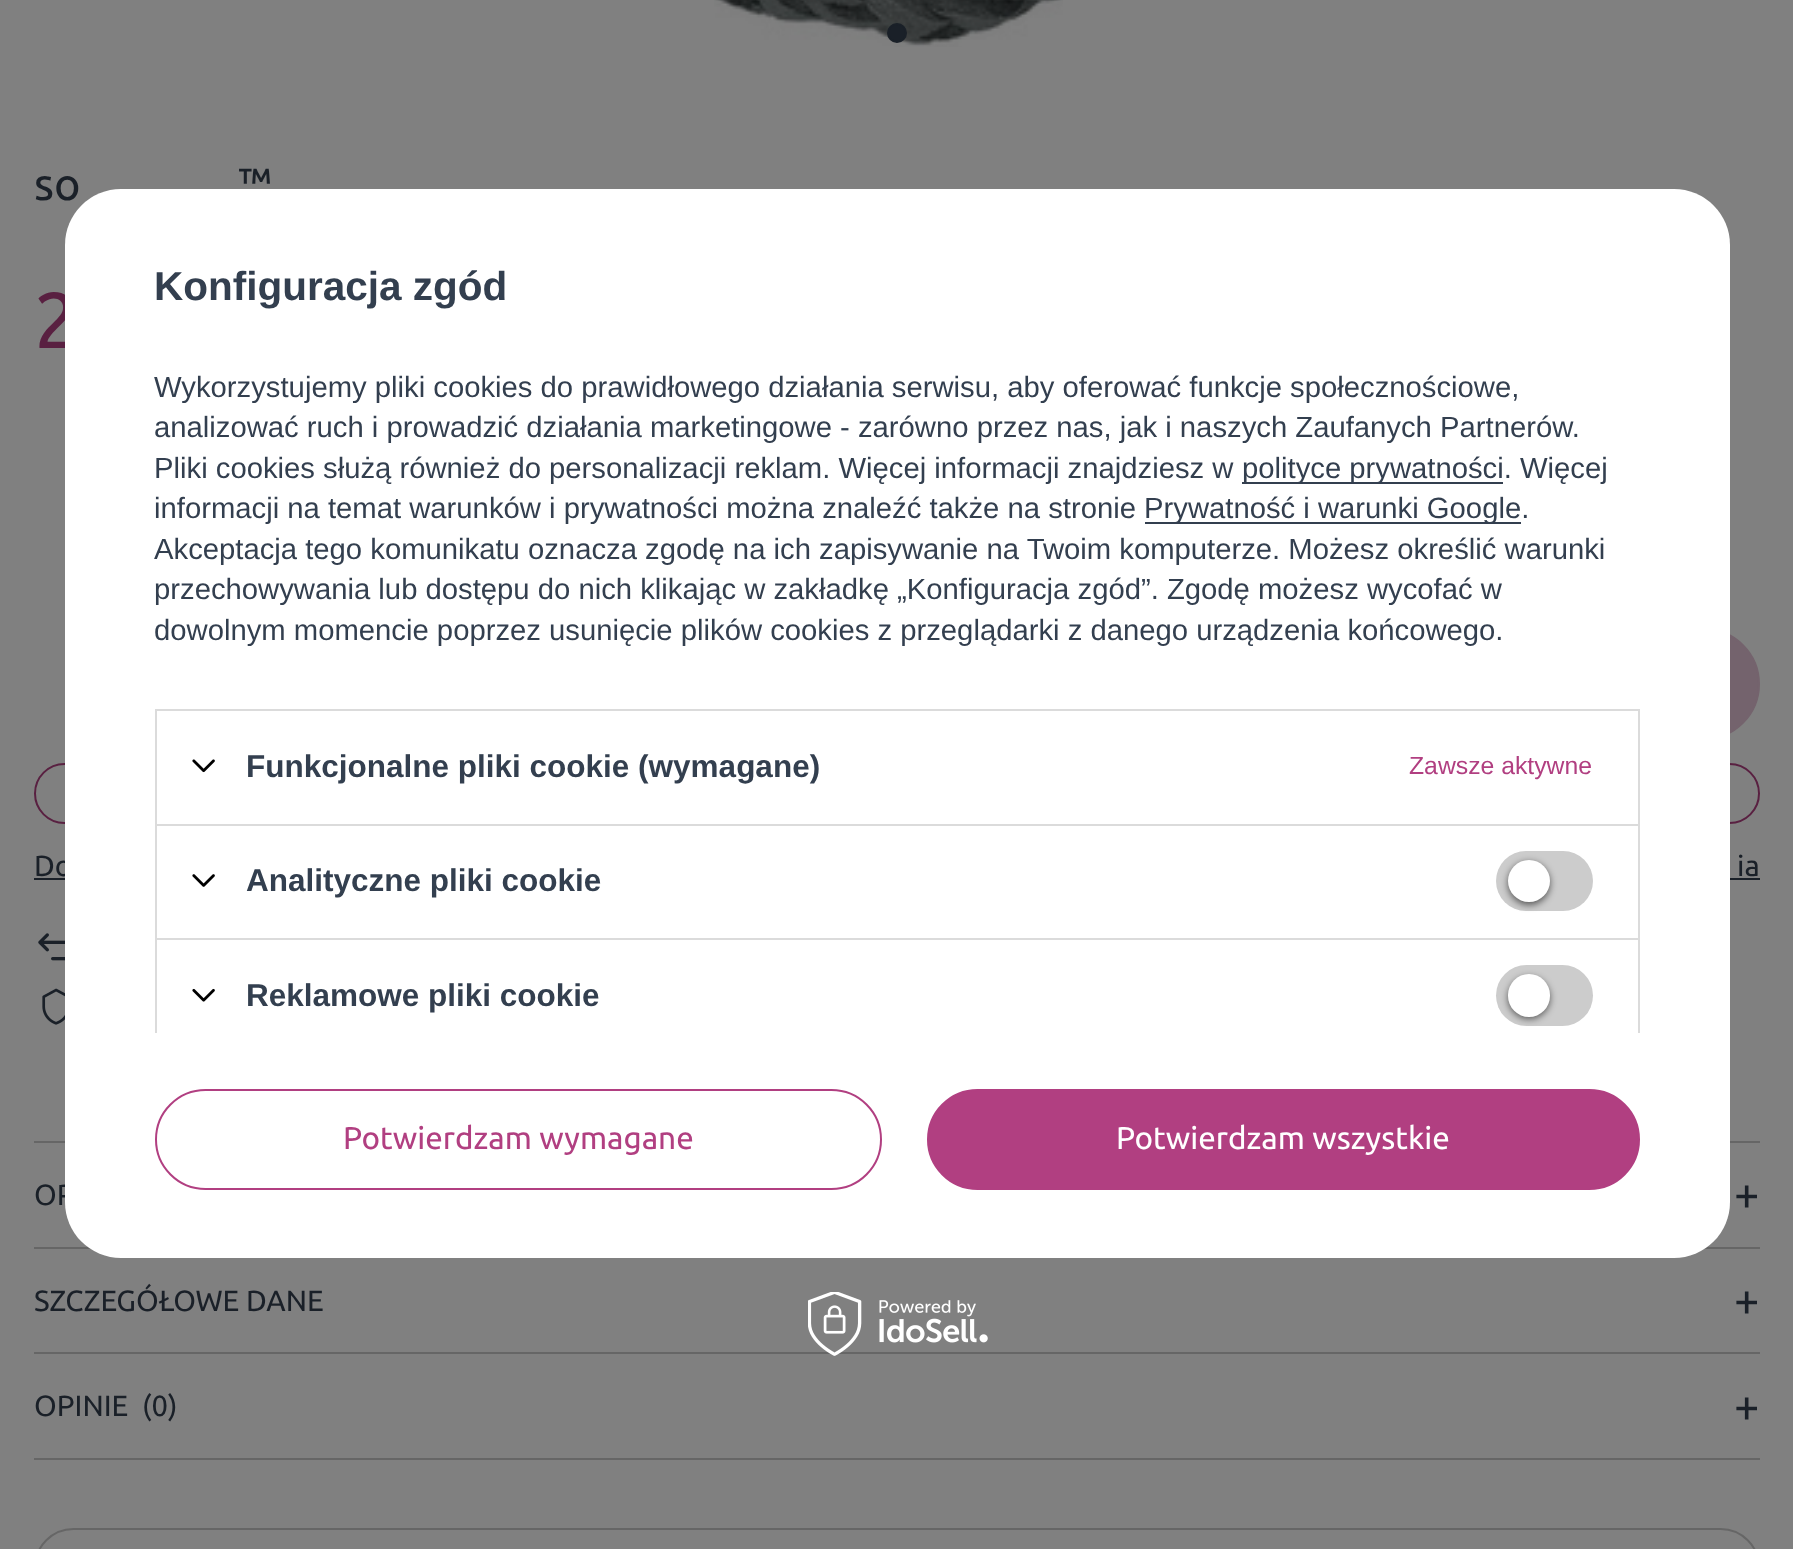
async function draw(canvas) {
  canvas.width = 1793
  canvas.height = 1549
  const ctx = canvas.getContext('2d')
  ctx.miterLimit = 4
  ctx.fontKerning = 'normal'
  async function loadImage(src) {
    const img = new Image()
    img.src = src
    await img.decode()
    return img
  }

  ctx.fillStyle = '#808080'
  ctx.fillRect(0, 0, 1793, 1549)
  ctx.drawImage(await loadImage('image0.png'), 714, 0, 349, 47)
  ctx.fillStyle = '#1a2028'
  ctx.beginPath()
  ctx.arc(897, 33, 9, 0, 2 * Math.PI)
  ctx.fill()
  ctx.strokeStyle = '#1a2028'
  ctx.lineWidth = 2
  ctx.stroke()
  ctx.font = '45px Ubuntu'
  ctx.fillText('so', 34, 200)
  ctx.fillText('™', 238, 200)
  ctx.font = '79px Ubuntu'
  ctx.fillStyle = '#592041'
  ctx.fillText('2', 34, 348)
  ctx.fillStyle = '#74636d'
  ctx.beginPath()
  ctx.roundRect(339, 629, 1420, 110, 55)
  ctx.fill()
  ctx.strokeStyle = '#74636d'
  ctx.stroke()
  ctx.beginPath()
  ctx.roundRect(35, 764, 1724, 59, 29.5)
  ctx.strokeStyle = '#592041'
  ctx.stroke()
  ctx.font = '29.25px Ubuntu'
  ctx.fillStyle = '#1a2028'
  ctx.fillText('Do', 34, 876)
  ctx.fillRect(34, 878, 31, 2)
  ctx.fillText('ia', 1737, 876)
  ctx.fillRect(1730, 878, 30, 2)
  ctx.drawImage(await loadImage('image1.png'), 38, 933, 27, 28)
  ctx.drawImage(await loadImage('image2.png'), 42, 988, 23, 37)
  ctx.fillStyle = '#666'
  ctx.fillRect(34, 1141, 1726, 2)
  ctx.fillStyle = '#1a2028'
  ctx.fillText('OP', 34, 1205)
  ctx.font = '45px Ubuntu'
  ctx.fillText('+', 1734, 1210)
  ctx.fillStyle = '#666'
  ctx.fillRect(34, 1247, 1726, 2)
  ctx.font = '29.25px Ubuntu'
  ctx.fillStyle = '#1a2028'
  ctx.fillText('SZCZEGÓŁOWE DANE', 34, 1311)
  ctx.font = '45px Ubuntu'
  ctx.fillText('+', 1734, 1316)
  ctx.fillStyle = '#666'
  ctx.fillRect(34, 1458, 1726, 2)
  ctx.fillRect(34, 1352, 1726, 2)
  ctx.font = '29.25px Ubuntu'
  ctx.fillStyle = '#1a2028'
  ctx.fillText('OPINIE', 34, 1416)
  ctx.fillText('(0)', 142, 1416)
  ctx.font = '45px Ubuntu'
  ctx.fillText('+', 1734, 1422)
  ctx.beginPath()
  ctx.roundRect(35, 1529, 1724, 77, 55)
  ctx.strokeStyle = '#666'
  ctx.stroke()
  ctx.fillStyle = '#fff'
  ctx.beginPath()
  ctx.roundRect(65, 189, 1665, 1069, 56)
  ctx.fill()
  ctx.font = 'bold 40.5px Liberation Sans'
  ctx.fillStyle = '#333f4f'
  ctx.fillText('Konfiguracja zgód', 154, 300)
  ctx.font = '29.25px Liberation Sans'
  ctx.fillText('Wykorzystujemy pliki cookies do prawidłowego działania serwisu, aby oferować funkcje społecznościowe,', 154, 397)
  ctx.fillText('analizować ruch i prowadzić działania marketingowe - zarówno przez nas, jak i naszych Zaufanych Partnerów.', 154, 437)
  ctx.fillText('Pliki cookies służą również do personalizacji reklam. Więcej informacji znajdziesz w', 154, 478)
  ctx.fillRect(1242, 482, 261, 2)
  ctx.fillText('polityce prywatności. Więcej', 1242, 478)
  ctx.fillText('informacji na temat warunków i prywatności można znaleźć także na stronie', 154, 518)
  ctx.fillRect(1145, 522, 376, 2)
  ctx.fillText('Prywatność i warunki Google.', 1144, 518)
  ctx.fillText('Akceptacja tego komunikatu oznacza zgodę na ich zapisywanie na Twoim komputerze. Możesz określić warunki', 154, 559)
  ctx.fillText('przechowywania lub dostępu do nich klikając w zakładkę „Konfiguracja zgód”. Zgodę możesz wycofać w', 154, 599)
  ctx.fillText('dowolnym momencie poprzez usunięcie plików cookies z przeglądarki z danego urządzenia końcowego.', 154, 640)
  ctx.fillStyle = '#dbdbdb'
  ctx.fillRect(155, 709, 1485, 2)
  ctx.fillRect(1638, 709, 2, 115)
  ctx.fillRect(155, 709, 2, 115)
  ctx.drawImage(await loadImage('image3.png'), 192, 759, 23, 14)
  ctx.font = 'bold 31.5px Liberation Sans'
  ctx.fillStyle = '#333f4f'
  ctx.fillText('Funkcjonalne pliki cookie (wymagane)', 246, 777)
  ctx.font = '24.75px Liberation Sans'
  ctx.fillStyle = '#b13f81'
  ctx.fillText('Zawsze aktywne', 1409, 774)
  ctx.fillStyle = '#dbdbdb'
  ctx.fillRect(155, 824, 1485, 2)
  ctx.fillRect(1638, 824, 2, 114)
  ctx.fillRect(155, 824, 2, 114)
  ctx.drawImage(await loadImage('image4.png'), 192, 874, 23, 13)
  ctx.font = 'bold 31.5px Liberation Sans'
  ctx.fillStyle = '#333f4f'
  ctx.fillText('Analityczne pliki cookie', 246, 891)
  ctx.fillStyle = '#ccc'
  ctx.beginPath()
  ctx.roundRect(1496, 851, 97, 60, 30)
  ctx.fill()
  ctx.fillStyle = '#0000008f'
  ctx.filter = 'blur(3.5px)'
  ctx.beginPath()
  ctx.roundRect(1508, 862, 42, 43, 21)
  ctx.fill()
  ctx.filter = 'none'
  ctx.fillStyle = '#fff'
  ctx.beginPath()
  ctx.arc(1529, 881, 21, 0, 2 * Math.PI)
  ctx.fill()
  ctx.save()
  ctx.beginPath()
  ctx.rect(133, 257, 1530, 776)
  ctx.clip()
  ctx.strokeStyle = '#dbdbdb'
  ctx.strokeRect(156, 939, 1483, 115)
  ctx.restore()
  ctx.drawImage(await loadImage('image5.png'), 192, 988, 23, 14)
  ctx.fillStyle = '#333f4f'
  ctx.fillText('Reklamowe pliki cookie', 246, 1006)
  ctx.fillStyle = '#ccc'
  ctx.beginPath()
  ctx.roundRect(1496, 965, 97, 61, 30.5)
  ctx.fill()
  ctx.fillStyle = '#0000008f'
  ctx.filter = 'blur(3.5px)'
  ctx.beginPath()
  ctx.roundRect(1508, 977, 42, 42, 21)
  ctx.fill()
  ctx.filter = 'none'
  ctx.fillStyle = '#fff'
  ctx.beginPath()
  ctx.roundRect(1508, 974, 42, 43, 21)
  ctx.fill()
  ctx.beginPath()
  ctx.roundRect(156, 1090, 725, 99, 49.5)
  ctx.strokeStyle = '#b13f81'
  ctx.stroke()
  ctx.font = '31.5px Ubuntu'
  ctx.fillStyle = '#b13f81'
  ctx.fillText('Potwierdzam wymagane', 343, 1149)
  ctx.beginPath()
  ctx.roundRect(928, 1090, 711, 99, 49.5)
  ctx.fill()
  ctx.stroke()
  ctx.fillStyle = '#fff'
  ctx.fillText('Potwierdzam wszystkie', 1116, 1149)
  ctx.drawImage(await loadImage('image6.png'), 808, 1292, 180, 64)
}

draw(document.querySelector('canvas'))
